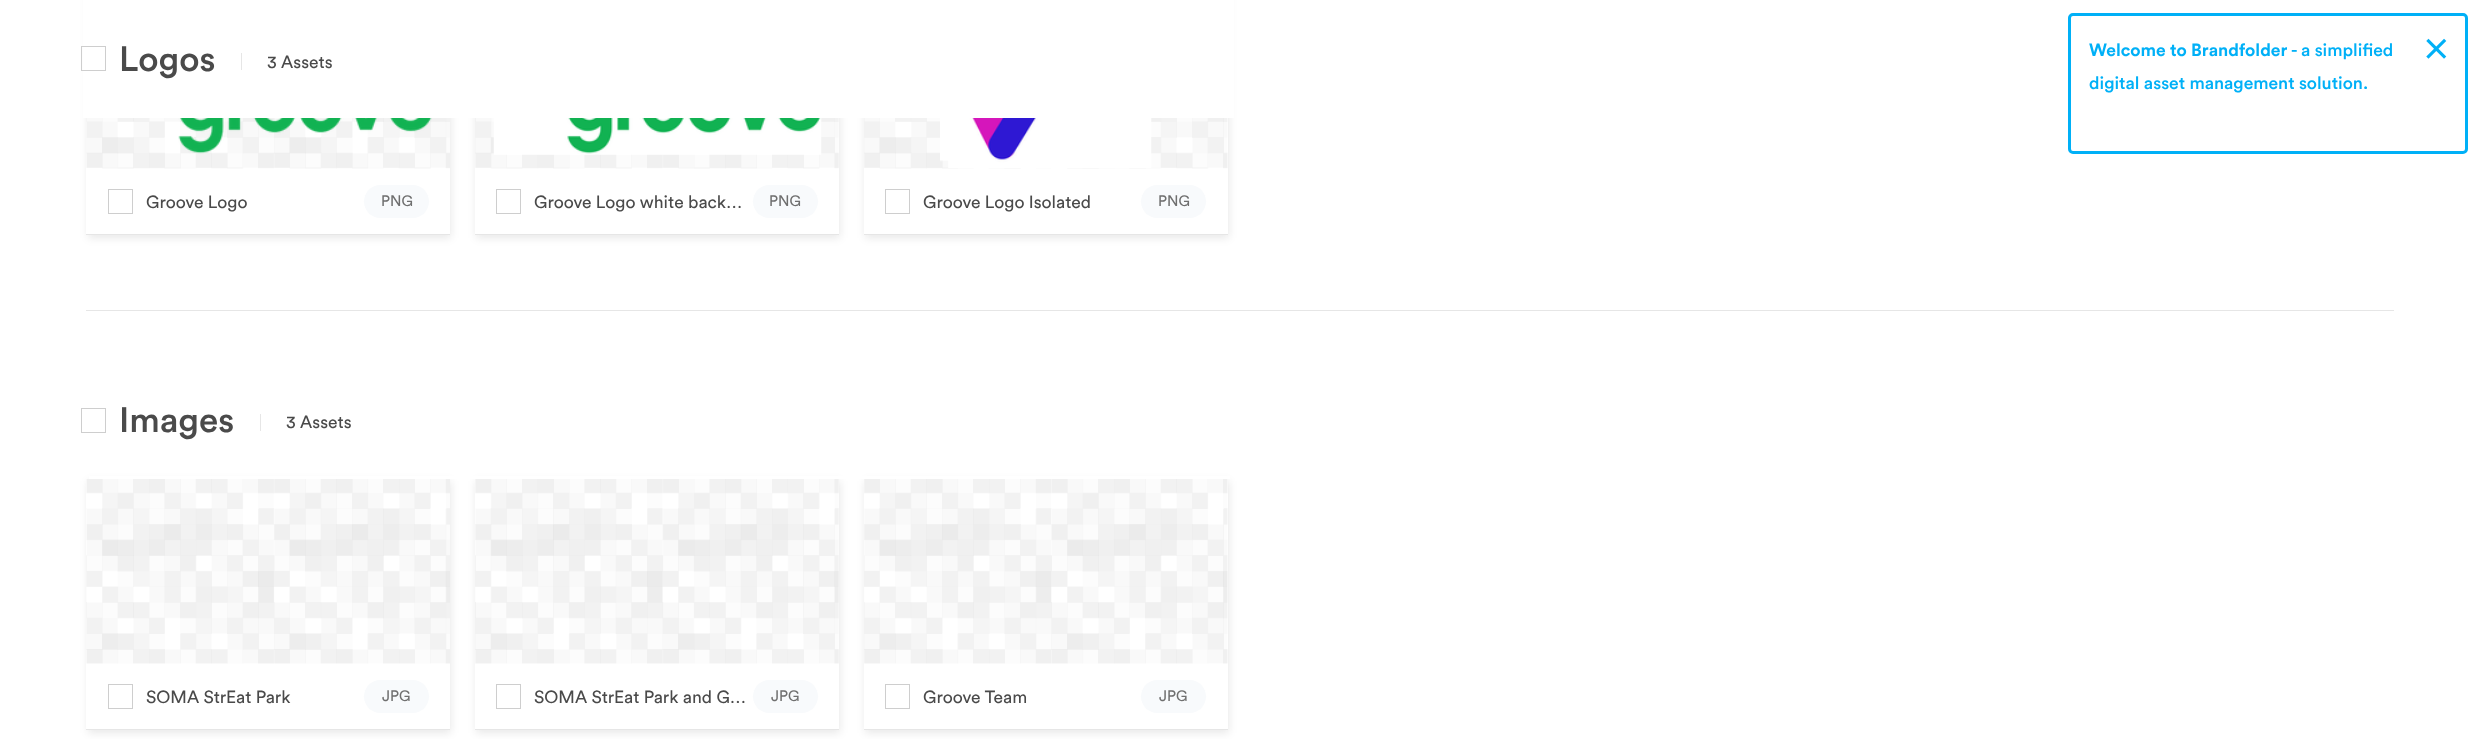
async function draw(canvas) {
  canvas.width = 2480
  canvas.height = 739
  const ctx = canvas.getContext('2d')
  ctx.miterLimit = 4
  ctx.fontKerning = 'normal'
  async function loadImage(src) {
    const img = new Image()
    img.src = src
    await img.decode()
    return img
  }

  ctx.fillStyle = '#fff'
  ctx.fillRect(0, 0, 2480, 739)
  ctx.fillStyle = '#e6e6e6'
  ctx.fillRect(86, 310, 2308, 1)
  ctx.save()
  ctx.beginPath()
  ctx.moveTo(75, 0)
  ctx.lineTo(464, 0)
  ctx.lineTo(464, 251)
  ctx.lineTo(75, 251)
  ctx.closePath()
  ctx.moveTo(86, -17)
  ctx.lineTo(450, -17)
  ctx.lineTo(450, 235)
  ctx.lineTo(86, 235)
  ctx.closePath()
  ctx.clip('evenodd')
  ctx.fillStyle = '#00000017'
  ctx.filter = 'blur(4px)'
  ctx.beginPath()
  ctx.rect(88, -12, 363, 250)
  ctx.fill()
  ctx.filter = 'none'
  ctx.restore()
  ctx.save()
  ctx.beginPath()
  ctx.moveTo(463, 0)
  ctx.lineTo(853, 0)
  ctx.lineTo(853, 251)
  ctx.lineTo(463, 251)
  ctx.closePath()
  ctx.moveTo(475, -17)
  ctx.lineTo(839, -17)
  ctx.lineTo(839, 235)
  ctx.lineTo(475, 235)
  ctx.closePath()
  ctx.clip('evenodd')
  ctx.fillStyle = '#00000017'
  ctx.filter = 'blur(4px)'
  ctx.beginPath()
  ctx.rect(476, -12, 364, 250)
  ctx.fill()
  ctx.filter = 'none'
  ctx.restore()
  ctx.save()
  ctx.beginPath()
  ctx.moveTo(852, 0)
  ctx.lineTo(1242, 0)
  ctx.lineTo(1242, 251)
  ctx.lineTo(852, 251)
  ctx.closePath()
  ctx.moveTo(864, -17)
  ctx.lineTo(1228, -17)
  ctx.lineTo(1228, 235)
  ctx.lineTo(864, 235)
  ctx.closePath()
  ctx.clip('evenodd')
  ctx.fillStyle = '#00000017'
  ctx.filter = 'blur(4px)'
  ctx.beginPath()
  ctx.rect(865, -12, 364, 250)
  ctx.fill()
  ctx.filter = 'none'
  ctx.restore()
  ctx.fillStyle = '#fff'
  ctx.fillRect(83, 0, 1151, 118)
  ctx.strokeStyle = '#cecece'
  ctx.strokeRect(81.5, 46.5, 24, 24)
  ctx.font = '500 35px Circular'
  ctx.fillStyle = '#4a4a4a'
  ctx.fillText('Logos', 119, 71)
  ctx.fillStyle = '#e6e6e6'
  ctx.fillRect(241, 53, 1, 17)
  ctx.font = '17.5px Circular'
  ctx.fillStyle = '#4a4a4a'
  ctx.fillText('3 Assets', 267, 68)
  ctx.drawImage(await loadImage('image0.png'), 86, 118, 364, 51)
  ctx.drawImage(await loadImage('image1.png'), 178, 118, 254, 36)
  ctx.fillStyle = '#e6e6e6'
  ctx.fillRect(86, 234, 364, 1)
  ctx.strokeRect(108.5, 189.5, 24, 24)
  ctx.fillStyle = '#4a4a4a'
  ctx.fillText('Groove Logo', 146, 208)
  ctx.fillStyle = '#f8fafc'
  ctx.beginPath()
  ctx.roundRect(364, 185, 65, 33, 16.5)
  ctx.fill()
  ctx.font = '15px Circular'
  ctx.fillStyle = '#6f6f6f'
  ctx.fillText('PNG', 381, 206)
  ctx.drawImage(await loadImage('image2.png'), 475, 118, 364, 51)
  ctx.drawImage(await loadImage('image3.png'), 493, 118, 329, 37)
  ctx.fillStyle = '#fff'
  ctx.fillRect(838, 169, 1, 65)
  ctx.fillStyle = '#e6e6e6'
  ctx.fillRect(475, 234, 364, 1)
  ctx.strokeRect(496.5, 189.5, 24, 24)
  ctx.font = '17.5px Circular'
  ctx.fillStyle = '#4a4a4a'
  ctx.fillText('Groove Logo white back…', 534, 208)
  ctx.fillStyle = '#f8fafc'
  ctx.beginPath()
  ctx.roundRect(753, 185, 65, 33, 16.5)
  ctx.fill()
  ctx.font = '15px Circular'
  ctx.fillStyle = '#6f6f6f'
  ctx.fillText('PNG', 769, 206)
  ctx.drawImage(await loadImage('image4.png'), 864, 118, 364, 51)
  ctx.drawImage(await loadImage('image5.png'), 940, 118, 212, 50)
  ctx.fillStyle = '#fff'
  ctx.fillRect(1227, 169, 1, 65)
  ctx.fillStyle = '#e6e6e6'
  ctx.fillRect(864, 234, 364, 1)
  ctx.strokeRect(885.5, 189.5, 24, 24)
  ctx.font = '17.5px Circular'
  ctx.fillStyle = '#4a4a4a'
  ctx.fillText('Groove Logo Isolated', 923, 208)
  ctx.fillStyle = '#f8fafc'
  ctx.beginPath()
  ctx.roundRect(1141, 185, 65, 33, 16.5)
  ctx.fill()
  ctx.font = '15px Circular'
  ctx.fillStyle = '#6f6f6f'
  ctx.fillText('PNG', 1158, 206)
  ctx.save()
  ctx.beginPath()
  ctx.moveTo(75, 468)
  ctx.lineTo(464, 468)
  ctx.lineTo(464, 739)
  ctx.lineTo(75, 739)
  ctx.closePath()
  ctx.moveTo(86, 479)
  ctx.lineTo(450, 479)
  ctx.lineTo(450, 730)
  ctx.lineTo(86, 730)
  ctx.closePath()
  ctx.clip('evenodd')
  ctx.fillStyle = '#00000017'
  ctx.filter = 'blur(4px)'
  ctx.beginPath()
  ctx.rect(88, 481, 363, 252)
  ctx.fill()
  ctx.filter = 'none'
  ctx.restore()
  ctx.save()
  ctx.beginPath()
  ctx.moveTo(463, 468)
  ctx.lineTo(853, 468)
  ctx.lineTo(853, 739)
  ctx.lineTo(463, 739)
  ctx.closePath()
  ctx.moveTo(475, 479)
  ctx.lineTo(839, 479)
  ctx.lineTo(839, 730)
  ctx.lineTo(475, 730)
  ctx.closePath()
  ctx.clip('evenodd')
  ctx.fillStyle = '#00000017'
  ctx.filter = 'blur(4px)'
  ctx.beginPath()
  ctx.rect(476, 481, 364, 252)
  ctx.fill()
  ctx.filter = 'none'
  ctx.restore()
  ctx.save()
  ctx.beginPath()
  ctx.moveTo(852, 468)
  ctx.lineTo(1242, 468)
  ctx.lineTo(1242, 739)
  ctx.lineTo(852, 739)
  ctx.closePath()
  ctx.moveTo(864, 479)
  ctx.lineTo(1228, 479)
  ctx.lineTo(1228, 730)
  ctx.lineTo(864, 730)
  ctx.closePath()
  ctx.clip('evenodd')
  ctx.fillStyle = '#00000017'
  ctx.filter = 'blur(4px)'
  ctx.beginPath()
  ctx.rect(865, 481, 364, 252)
  ctx.fill()
  ctx.filter = 'none'
  ctx.restore()
  ctx.fillStyle = '#fff'
  ctx.fillRect(89, 476, 1141, 3)
  ctx.strokeRect(81.5, 408.5, 24, 24)
  ctx.font = '500 35px Circular'
  ctx.fillStyle = '#4a4a4a'
  ctx.fillText('Images', 119, 432)
  ctx.fillStyle = '#e6e6e6'
  ctx.fillRect(260, 414, 1, 17)
  ctx.font = '17.5px Circular'
  ctx.fillStyle = '#4a4a4a'
  ctx.fillText('3 Assets', 286, 428)
  ctx.drawImage(await loadImage('image6.png'), 86, 479, 364, 185)
  ctx.fillStyle = '#e6e6e6'
  ctx.fillRect(86, 729, 364, 1)
  ctx.strokeRect(108.5, 684.5, 24, 24)
  ctx.fillStyle = '#4a4a4a'
  ctx.fillText('SOMA StrEat Park', 146, 703)
  ctx.fillStyle = '#f8fafc'
  ctx.beginPath()
  ctx.roundRect(364, 680, 65, 33, 16.5)
  ctx.fill()
  ctx.font = '15px Circular'
  ctx.fillStyle = '#6f6f6f'
  ctx.fillText('JPG', 382, 701)
  ctx.drawImage(await loadImage('image7.png'), 475, 479, 364, 185)
  ctx.fillStyle = '#fff'
  ctx.fillRect(838, 664, 1, 65)
  ctx.fillStyle = '#e6e6e6'
  ctx.fillRect(475, 729, 364, 1)
  ctx.strokeRect(496.5, 684.5, 24, 24)
  ctx.font = '17.5px Circular'
  ctx.fillStyle = '#4a4a4a'
  ctx.fillText('SOMA StrEat Park and G…', 534, 703)
  ctx.fillStyle = '#f8fafc'
  ctx.beginPath()
  ctx.roundRect(753, 680, 65, 33, 16.5)
  ctx.fill()
  ctx.font = '15px Circular'
  ctx.fillStyle = '#6f6f6f'
  ctx.fillText('JPG', 771, 701)
  ctx.drawImage(await loadImage('image8.png'), 864, 479, 364, 185)
  ctx.fillStyle = '#fff'
  ctx.fillRect(1227, 664, 1, 65)
  ctx.fillStyle = '#e6e6e6'
  ctx.fillRect(864, 729, 364, 1)
  ctx.strokeRect(885.5, 684.5, 24, 24)
  ctx.font = '17.5px Circular'
  ctx.fillStyle = '#4a4a4a'
  ctx.fillText('Groove Team', 923, 703)
  ctx.fillStyle = '#f8fafc'
  ctx.beginPath()
  ctx.roundRect(1141, 680, 65, 33, 16.5)
  ctx.fill()
  ctx.font = '15px Circular'
  ctx.fillStyle = '#6f6f6f'
  ctx.fillText('JPG', 1159, 701)
  ctx.beginPath()
  ctx.roundRect(2069.5, 14.5, 397, 138, 3.5)
  ctx.strokeStyle = '#00b0f7'
  ctx.lineWidth = 3
  ctx.stroke()
  ctx.font = 'bold 17.5px Circular'
  ctx.fillStyle = '#00b0f7'
  ctx.fillText('Welcome to Brandfolder', 2089, 56)
  ctx.font = '500 17.5px Circular'
  ctx.fillText('- a simplified', 2291, 56)
  ctx.fillText('digital asset management solution.', 2089, 89)
  ctx.drawImage(await loadImage('image9.png'), 2426, 38, 21, 21)
}

draw(document.querySelector('canvas'))
